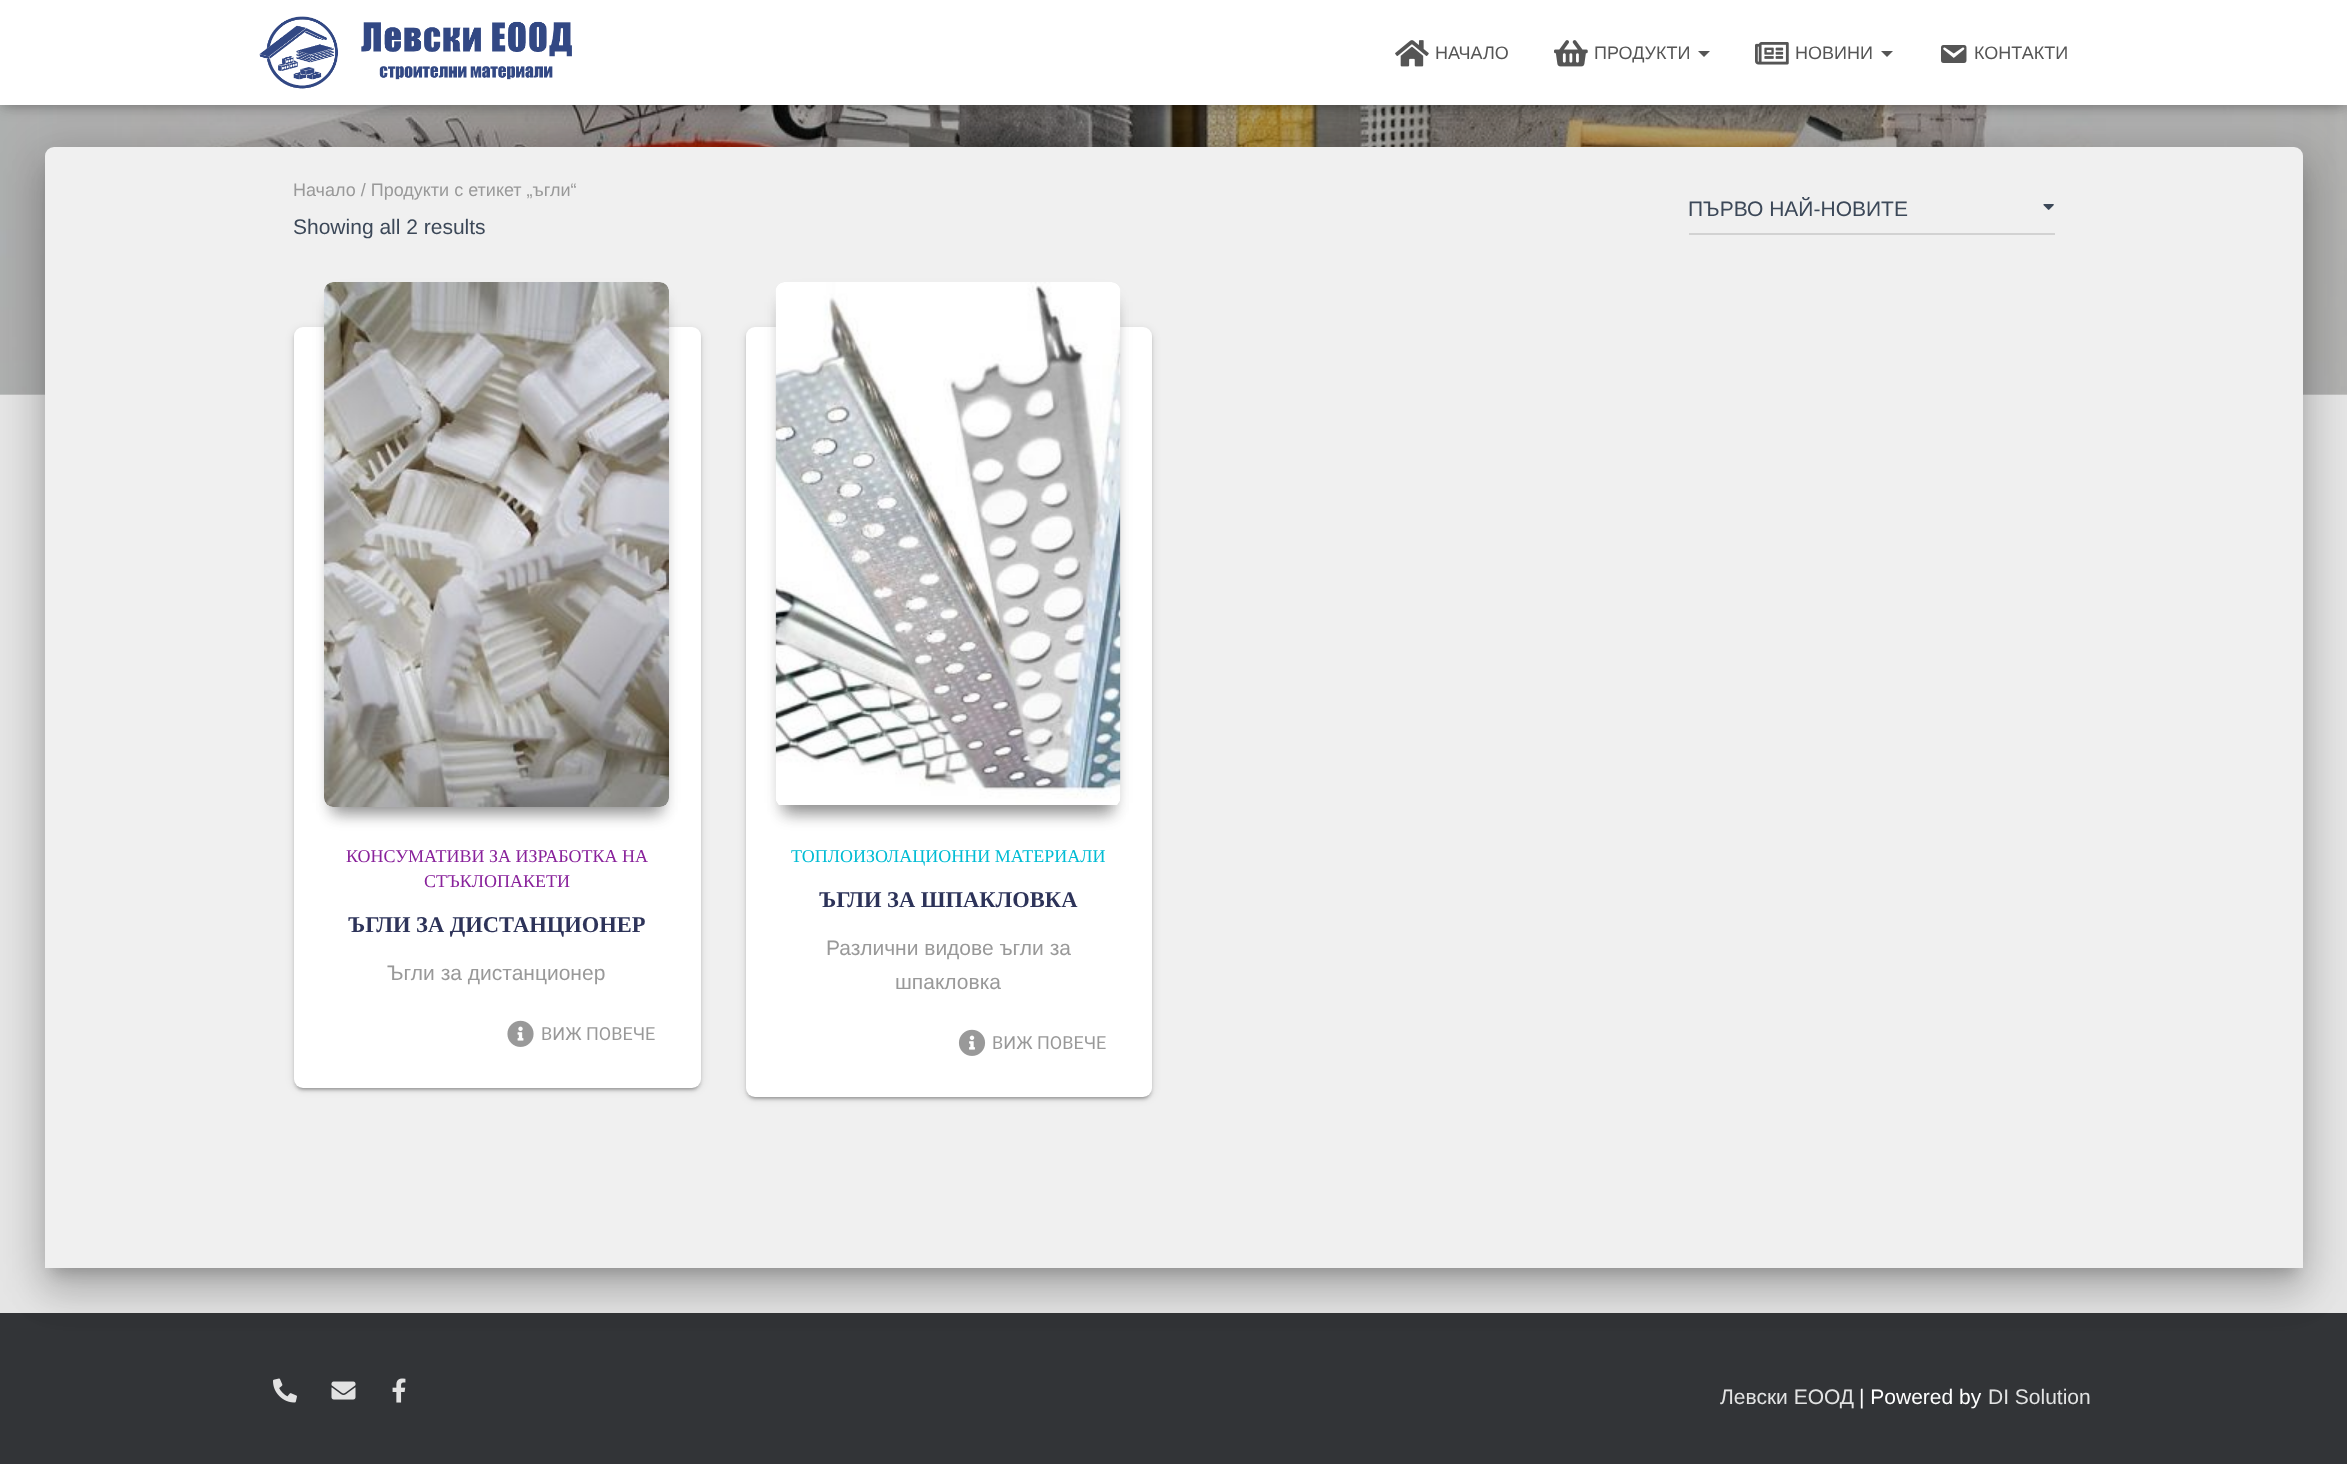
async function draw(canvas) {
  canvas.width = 2347
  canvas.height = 1464
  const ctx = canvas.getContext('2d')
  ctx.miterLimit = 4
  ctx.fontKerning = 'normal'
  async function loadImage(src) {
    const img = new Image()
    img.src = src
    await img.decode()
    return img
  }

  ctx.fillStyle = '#e5e5e5'
  ctx.fillRect(0, 0, 2347, 1464)
  ctx.drawImage(await loadImage('image5.png'), 0, 105, 2347, 290)
  ctx.fillStyle = '#0000001a'
  ctx.filter = 'blur(4px)'
  ctx.beginPath()
  ctx.rect(3, 9, 2342, 99)
  ctx.fill()
  ctx.filter = 'none'
  ctx.fillStyle = '#0000001f'
  ctx.filter = 'blur(7.5px)'
  ctx.beginPath()
  ctx.rect(0, 2, 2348, 105)
  ctx.fill()
  ctx.filter = 'none'
  ctx.fillStyle = '#0000006b'
  ctx.filter = 'blur(7.5px)'
  ctx.beginPath()
  ctx.rect(9, 11, 2330, 87)
  ctx.fill()
  ctx.filter = 'none'
  ctx.fillStyle = '#323437'
  ctx.fillRect(0, 1313, 2347, 151)
  ctx.fillStyle = '#0000001f'
  ctx.filter = 'blur(22.5px)'
  ctx.beginPath()
  ctx.roundRect(38, 149, 2272, 1135, 17)
  ctx.fill()
  ctx.filter = 'none'
  ctx.fillStyle = '#fff'
  ctx.fillRect(0, 0, 2347, 105)
  ctx.drawImage(await loadImage('image0.png'), 259, 16, 313, 73)
  ctx.drawImage(await loadImage('image1.png'), 1395, 40, 34, 27)
  ctx.font = '18px Liberation Sans'
  ctx.fillStyle = '#555'
  ctx.fillText('НАЧАЛО', 1435, 59)
  ctx.drawImage(await loadImage('image2.png'), 1554, 40, 34, 27)
  ctx.fillText('ПРОДУКТИ', 1594, 59)
  ctx.beginPath()
  ctx.moveTo(1698, 51)
  ctx.lineTo(1710, 51)
  ctx.lineTo(1704, 57)
  ctx.closePath()
  ctx.fill()
  ctx.drawImage(await loadImage('image3.png'), 1755, 42, 34, 23)
  ctx.fillText('НОВИНИ', 1795, 59)
  ctx.beginPath()
  ctx.moveTo(1881, 51)
  ctx.lineTo(1893, 51)
  ctx.lineTo(1887, 57)
  ctx.closePath()
  ctx.fill()
  ctx.drawImage(await loadImage('image4.png'), 1941, 45, 26, 18)
  ctx.fillText('КОНТАКТИ', 1974, 59)
  ctx.fillStyle = '#00000033'
  ctx.filter = 'blur(7.5px)'
  ctx.beginPath()
  ctx.roundRect(53, 167, 2242, 1105, 1.5)
  ctx.fill()
  ctx.filter = 'none'
  ctx.fillStyle = '#00000024'
  ctx.filter = 'blur(18px)'
  ctx.beginPath()
  ctx.roundRect(42, 168, 2264, 1127, 12)
  ctx.fill()
  ctx.filter = 'none'
  ctx.fillStyle = '#f0f0f0'
  ctx.beginPath()
  ctx.roundRect(45, 147, 2258, 1121, [9, 9, 0, 0])
  ctx.fill()
  ctx.fillStyle = '#999'
  ctx.fillText('Начало / Продукти с етикет „ъгли“', 293, 196)
  ctx.font = '21px Liberation Sans'
  ctx.fillStyle = '#3c4858'
  ctx.fillText('Showing all 2 results', 293, 234)
  ctx.fillStyle = '#d2d2d2'
  ctx.fillRect(1689, 233, 366, 2)
  ctx.fillStyle = '#3c4858'
  ctx.fillText('ПЪРВО НАЙ-НОВИТЕ', 1688, 216)
  ctx.drawImage(await loadImage('image6.png'), 2043, 204, 11, 6)
  ctx.fillStyle = '#0000001f'
  ctx.filter = 'blur(4px)'
  ctx.beginPath()
  ctx.roundRect(294, 329, 407, 760, 9)
  ctx.fill()
  ctx.filter = 'none'
  ctx.fillStyle = '#00000033'
  ctx.filter = 'blur(1px)'
  ctx.beginPath()
  ctx.roundRect(297, 335, 401, 754, 6)
  ctx.fill()
  ctx.filter = 'none'
  ctx.fillStyle = '#00000024'
  ctx.filter = 'blur(1.5px)'
  ctx.beginPath()
  ctx.roundRect(294, 330, 407, 761, 9)
  ctx.fill()
  ctx.filter = 'none'
  ctx.fillStyle = '#fff'
  ctx.beginPath()
  ctx.roundRect(294, 327, 407, 761, 9)
  ctx.fill()
  ctx.fillStyle = '#00000033'
  ctx.filter = 'blur(7.5px)'
  ctx.beginPath()
  ctx.roundRect(332, 305, 330, 510, 1.5)
  ctx.fill()
  ctx.filter = 'none'
  ctx.filter = 'blur(7.5px)'
  ctx.beginPath()
  ctx.roundRect(332, 302, 330, 510, 1.5)
  ctx.fill()
  ctx.filter = 'none'
  ctx.fillStyle = '#0000003d'
  ctx.filter = 'blur(11px)'
  ctx.beginPath()
  ctx.rect(336, 302, 321, 501)
  ctx.fill()
  ctx.filter = 'none'
  ctx.drawImage(await loadImage('image7.png'), 324, 282, 345, 525)
  ctx.font = '18px Liberation Serif'
  ctx.fillStyle = '#89229b'
  ctx.fillText('КОНСУМАТИВИ ЗА ИЗРАБОТКА НА', 346, 862)
  ctx.fillText('СТЪКЛОПАКЕТИ', 424, 887)
  ctx.font = 'bold 22.5px Liberation Serif'
  ctx.fillStyle = '#2d3359'
  ctx.fillText('ЪГЛИ ЗА ДИСТАНЦИОНЕР', 348, 932)
  ctx.font = '21px Liberation Sans'
  ctx.fillStyle = '#999'
  ctx.fillText('Ъгли за дистанционер', 387, 980)
  ctx.drawImage(await loadImage('image8.png'), 507, 1020, 27, 27)
  ctx.font = '18px Roboto'
  ctx.fillText('ВИЖ ПОВЕЧЕ', 541, 1040)
  ctx.fillStyle = '#0000001f'
  ctx.filter = 'blur(4px)'
  ctx.beginPath()
  ctx.roundRect(746, 329, 406, 769, 9)
  ctx.fill()
  ctx.filter = 'none'
  ctx.fillStyle = '#00000033'
  ctx.filter = 'blur(1px)'
  ctx.beginPath()
  ctx.roundRect(749, 335, 400, 763, 6)
  ctx.fill()
  ctx.filter = 'none'
  ctx.fillStyle = '#00000024'
  ctx.filter = 'blur(1.5px)'
  ctx.beginPath()
  ctx.roundRect(746, 330, 406, 770, 9)
  ctx.fill()
  ctx.filter = 'none'
  ctx.fillStyle = '#fff'
  ctx.beginPath()
  ctx.roundRect(746, 327, 406, 770, 9)
  ctx.fill()
  ctx.fillStyle = '#00000033'
  ctx.filter = 'blur(7.5px)'
  ctx.beginPath()
  ctx.roundRect(783, 305, 330, 510, 1.5)
  ctx.fill()
  ctx.filter = 'none'
  ctx.filter = 'blur(7.5px)'
  ctx.beginPath()
  ctx.roundRect(783, 302, 330, 510, 1.5)
  ctx.fill()
  ctx.filter = 'none'
  ctx.fillStyle = '#0000003d'
  ctx.filter = 'blur(11px)'
  ctx.beginPath()
  ctx.rect(788, 302, 321, 501)
  ctx.fill()
  ctx.filter = 'none'
  ctx.drawImage(await loadImage('image9.png'), 775, 282, 346, 523)
  ctx.font = '18px Liberation Serif'
  ctx.fillStyle = '#00bcd4'
  ctx.fillText('ТОПЛОИЗОЛАЦИОННИ МАТЕРИАЛИ', 791, 862)
  ctx.font = 'bold 22.5px Liberation Serif'
  ctx.fillStyle = '#2d3359'
  ctx.fillText('ЪГЛИ ЗА ШПАКЛОВКА', 819, 907)
  ctx.font = '21px Liberation Sans'
  ctx.fillStyle = '#999'
  ctx.fillText('Различни видове ъгли за', 826, 955)
  ctx.fillText('шпакловка', 895, 989)
  ctx.drawImage(await loadImage('image10.png'), 958, 1029, 28, 27)
  ctx.font = '18px Roboto'
  ctx.fillText('ВИЖ ПОВЕЧЕ', 992, 1049)
  ctx.drawImage(await loadImage('image11.png'), 273, 1378, 24, 25)
  ctx.drawImage(await loadImage('image12.png'), 331, 1381, 25, 19)
  ctx.drawImage(await loadImage('image13.png'), 392, 1378, 14, 25)
  ctx.font = '21px Liberation Sans'
  ctx.fillStyle = '#e2e3e3'
  ctx.fillText('Левски ЕООД', 1720, 1404)
  ctx.fillStyle = '#fff'
  ctx.fillText('| Powered by', 1859, 1404)
  ctx.fillStyle = '#e2e3e3'
  ctx.fillText('DI Solution', 1988, 1404)
}

draw(document.querySelector('canvas'))
